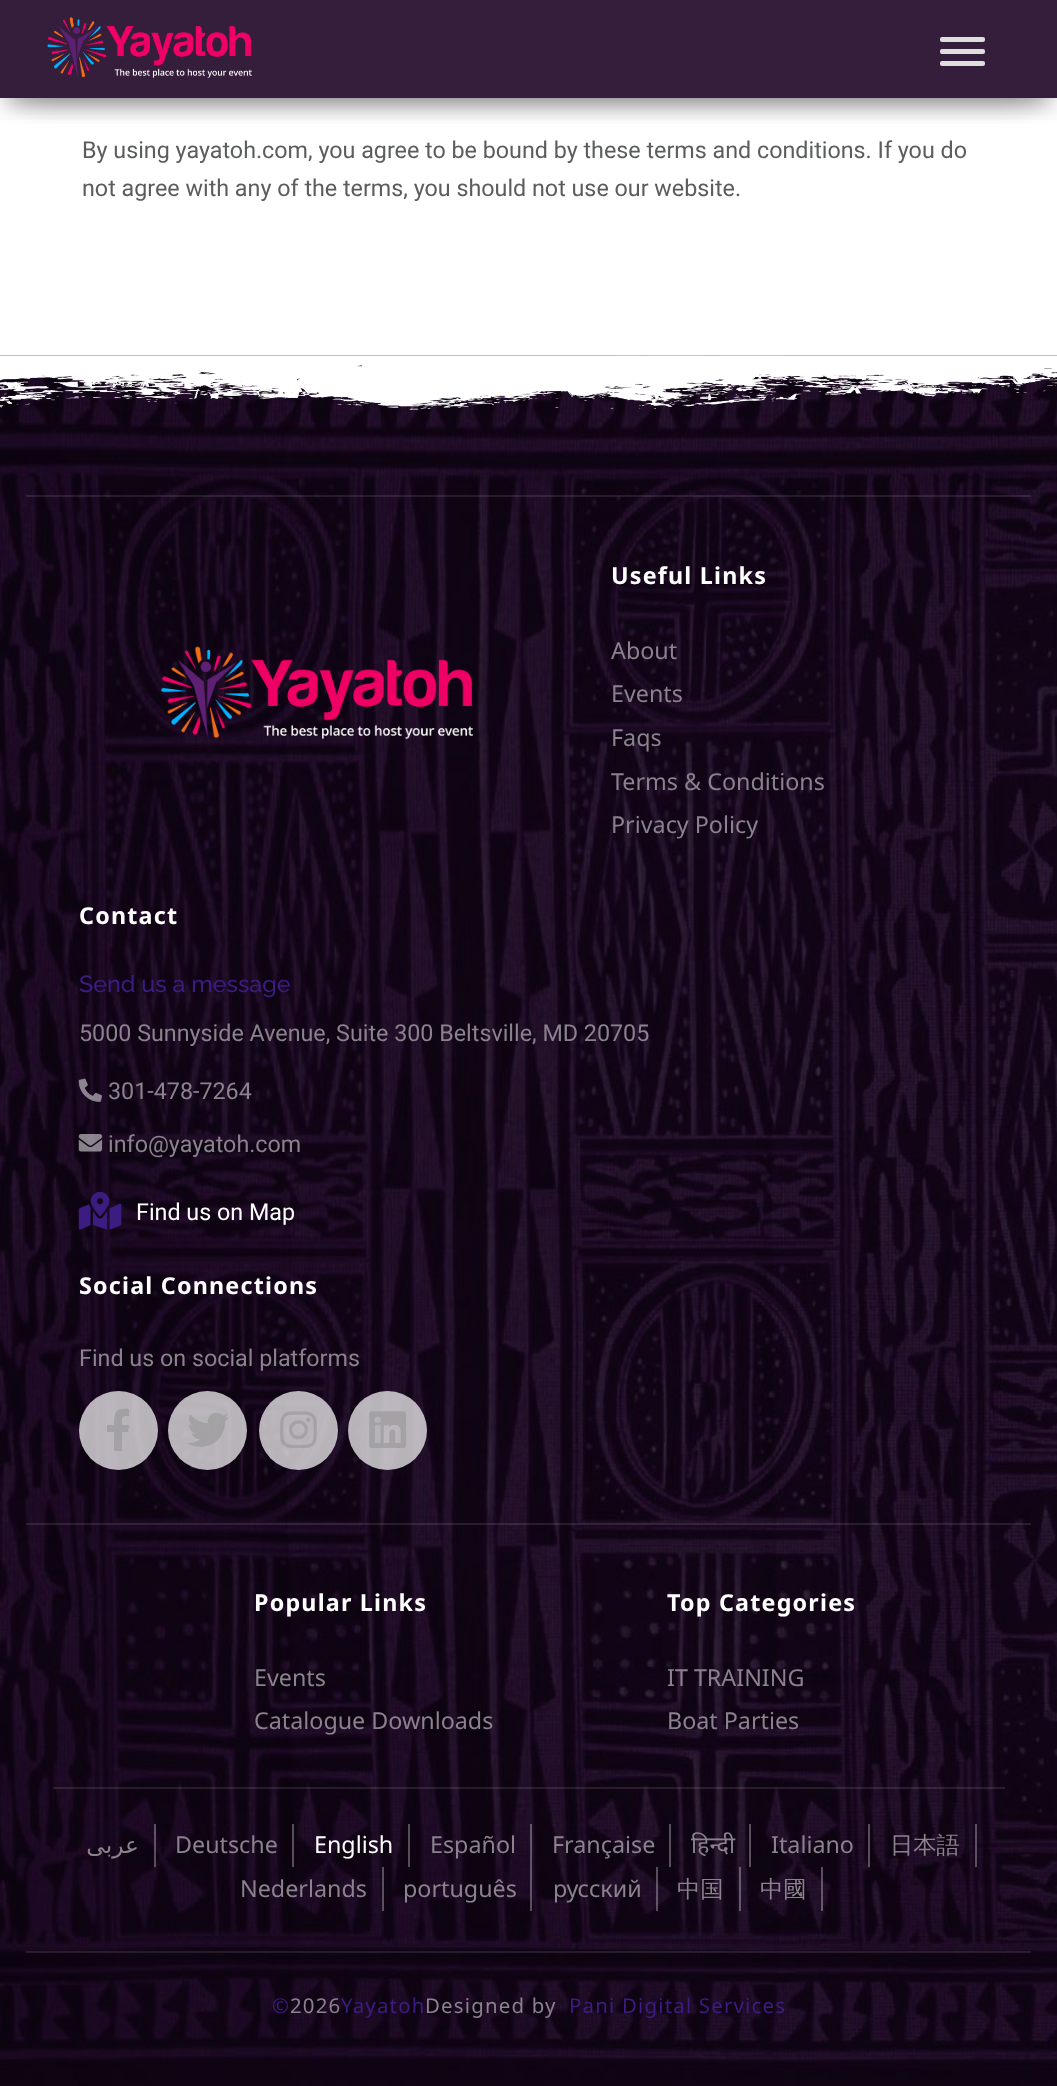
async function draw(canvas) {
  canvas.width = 1057
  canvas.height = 2086
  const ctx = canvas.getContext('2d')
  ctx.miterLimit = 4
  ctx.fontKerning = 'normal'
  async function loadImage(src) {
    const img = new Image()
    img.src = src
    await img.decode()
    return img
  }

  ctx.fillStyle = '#fff'
  ctx.fillRect(0, 0, 1057, 2086)
  ctx.fillStyle = '#341e3b'
  ctx.fillRect(0, 0, 1057, 98)
  ctx.save()
  ctx.beginPath()
  ctx.rect(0, 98, 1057, 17)
  ctx.clip()
  ctx.fillStyle = '#00000033'
  ctx.filter = 'blur(9px)'
  ctx.beginPath()
  ctx.rect(9, 23, 1039, 80)
  ctx.fill()
  ctx.filter = 'none'
  ctx.restore()
  ctx.save()
  ctx.beginPath()
  ctx.rect(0, 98, 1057, 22)
  ctx.clip()
  ctx.fillStyle = '#0000001f'
  ctx.filter = 'blur(17.5px)'
  ctx.beginPath()
  ctx.rect(0, 5, 1057, 98)
  ctx.fill()
  ctx.filter = 'none'
  ctx.restore()
  ctx.save()
  ctx.beginPath()
  ctx.rect(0, 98, 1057, 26)
  ctx.clip()
  ctx.fillStyle = '#0000006b'
  ctx.filter = 'blur(17.5px)'
  ctx.beginPath()
  ctx.rect(21, 39, 1015, 56)
  ctx.fill()
  ctx.filter = 'none'
  ctx.restore()
  ctx.drawImage(await loadImage('image0.png'), 47, 17, 205, 62)
  ctx.fillStyle = '#dedede'
  ctx.beginPath()
  ctx.roundRect(940, 37, 45, 5, 2)
  ctx.fill()
  ctx.beginPath()
  ctx.roundRect(940, 49, 45, 5, 2)
  ctx.fill()
  ctx.beginPath()
  ctx.roundRect(940, 61, 45, 5, 2)
  ctx.fill()
  ctx.font = '23.3px Roboto'
  ctx.fillStyle = '#5b5c5c'
  ctx.fillText('By using yayatoh.com, you agree to be bound by these terms and conditions. If you do', 82, 158)
  ctx.fillText('not agree with any of the terms, you should not use our website.', 82, 196)
  ctx.drawImage(await loadImage('image1.png'), 0, 355, 1057, 1731)
  ctx.drawImage(await loadImage('image2.png'), 0, 355, 1057, 55)
  ctx.fillStyle = '#ffffff1a'
  ctx.fillRect(26, 495, 1005, 2)
  ctx.drawImage(await loadImage('image3.png'), 160, 646, 313, 94)
  ctx.letterSpacing = '1.2px'
  ctx.font = 'bold 23.3px Noto Sans'
  ctx.fillStyle = '#fff'
  ctx.fillText('Useful Links', 611, 584)
  ctx.letterSpacing = '0px'
  ctx.font = '23.3px Noto Sans'
  ctx.fillStyle = '#8a828c'
  ctx.fillText('About', 611, 659)
  ctx.fillText('Events', 611, 702)
  ctx.fillText('Faqs', 611, 746)
  ctx.fillText('Terms & Conditions', 611, 790)
  ctx.fillText('Privacy Policy', 611, 833)
  ctx.letterSpacing = '1.2px'
  ctx.font = 'bold 23.3px Noto Sans'
  ctx.fillStyle = '#fff'
  ctx.fillText('Contact', 79, 924)
  ctx.letterSpacing = '0px'
  ctx.font = '500 23.3px Raleway'
  ctx.fillStyle = '#3b1d82'
  ctx.fillText('Send us a message', 79, 992)
  ctx.font = '23.3px Roboto'
  ctx.fillStyle = '#8a828c'
  ctx.fillText('5000 Sunnyside Avenue, Suite 300 Beltsville, MD 20705', 79, 1041)
  ctx.drawImage(await loadImage('image4.png'), 78, 1078, 24, 24)
  ctx.fillText('301-478-7264', 108, 1099)
  ctx.drawImage(await loadImage('image5.png'), 78, 1134, 25, 18)
  ctx.fillText('info@yayatoh.com', 108, 1152)
  ctx.drawImage(await loadImage('image6.png'), 78, 1191, 44, 39)
  ctx.fillStyle = '#fff'
  ctx.fillText('Find us on Map', 136, 1220)
  ctx.letterSpacing = '1.2px'
  ctx.font = 'bold 23.3px Noto Sans'
  ctx.fillText('Social Connections', 79, 1294)
  ctx.letterSpacing = '0px'
  ctx.font = '23.3px Roboto'
  ctx.fillStyle = '#8a828c'
  ctx.fillText('Find us on social platforms', 79, 1366)
  ctx.fillStyle = '#ffffffb3'
  ctx.beginPath()
  ctx.arc(118.5, 1430.5, 39.5, 0, 2 * Math.PI)
  ctx.fill()
  ctx.fillStyle = '#999999b3'
  ctx.beginPath()
  ctx.moveTo(128, 1432)
  ctx.lineTo(122, 1432)
  ctx.lineTo(122, 1451)
  ctx.lineTo(114, 1451)
  ctx.lineTo(114, 1432)
  ctx.lineTo(107, 1432)
  ctx.lineTo(107, 1425)
  ctx.lineTo(114, 1425)
  ctx.bezierCurveTo(114, 1411, 116, 1408, 129, 1409)
  ctx.lineTo(129, 1416)
  ctx.bezierCurveTo(121, 1416, 122, 1417, 122, 1425)
  ctx.lineTo(129, 1425)
  ctx.closePath()
  ctx.fill()
  ctx.fillStyle = '#ffffffb3'
  ctx.beginPath()
  ctx.arc(207.5, 1430.5, 39.5, 0, 2 * Math.PI)
  ctx.fill()
  ctx.drawImage(await loadImage('image7.png'), 188, 1412, 41, 35)
  ctx.beginPath()
  ctx.arc(298.5, 1430.5, 39.5, 0, 2 * Math.PI)
  ctx.fill()
  ctx.drawImage(await loadImage('image8.png'), 280, 1411, 37, 37)
  ctx.beginPath()
  ctx.arc(387.5, 1430.5, 39.5, 0, 2 * Math.PI)
  ctx.fill()
  ctx.drawImage(await loadImage('image9.png'), 369, 1411, 37, 37)
  ctx.fillStyle = '#ffffff1a'
  ctx.fillRect(26, 1523, 1005, 2)
  ctx.letterSpacing = '1.2px'
  ctx.font = 'bold 23.3px Noto Sans'
  ctx.fillStyle = '#fff'
  ctx.fillText('Popular Links', 254, 1611)
  ctx.letterSpacing = '0px'
  ctx.font = '23.3px Noto Sans'
  ctx.fillStyle = '#8a828c'
  ctx.fillText('Events', 254, 1686)
  ctx.fillText('Catalogue Downloads', 254, 1729)
  ctx.letterSpacing = '1.2px'
  ctx.font = 'bold 23.3px Noto Sans'
  ctx.fillStyle = '#fff'
  ctx.fillText('Top Categories', 667, 1611)
  ctx.letterSpacing = '0px'
  ctx.font = '23.3px Noto Sans'
  ctx.fillStyle = '#8a828c'
  ctx.fillText('IT TRAINING', 667, 1686)
  ctx.fillText('Boat Parties', 667, 1729)
  ctx.fillStyle = '#ffffff1a'
  ctx.fillRect(53, 1787, 952, 2)
  ctx.fillStyle = '#ffffff4d'
  ctx.fillRect(154, 1824, 2, 43)
  ctx.direction = 'rtl'
  ctx.font = '23.3px DejaVu Sans'
  ctx.fillStyle = '#8a828c'
  ctx.fillText('عربى', 139, 1853)
  ctx.fillStyle = '#ffffff4d'
  ctx.fillRect(292, 1824, 2, 43)
  ctx.direction = 'ltr'
  ctx.font = '23.3px Noto Sans'
  ctx.fillStyle = '#8a828c'
  ctx.fillText('Deutsche', 175, 1853)
  ctx.fillStyle = '#ffffff4d'
  ctx.fillRect(408, 1824, 2, 43)
  ctx.fillStyle = '#fff'
  ctx.fillText('English', 314, 1853)
  ctx.fillStyle = '#ffffff4d'
  ctx.fillRect(530, 1824, 2, 43)
  ctx.fillStyle = '#8a828c'
  ctx.fillText('Español', 430, 1853)
  ctx.fillStyle = '#ffffff4d'
  ctx.fillRect(669, 1824, 2, 43)
  ctx.fillStyle = '#8a828c'
  ctx.fillText('Française', 552, 1853)
  ctx.fillStyle = '#ffffff4d'
  ctx.fillRect(749, 1824, 2, 43)
  ctx.fillStyle = '#8a828c'
  ctx.fillText('हिन्दी', 691, 1853)
  ctx.fillStyle = '#ffffff4d'
  ctx.fillRect(868, 1824, 2, 43)
  ctx.fillStyle = '#8a828c'
  ctx.fillText('Italiano', 771, 1853)
  ctx.fillStyle = '#ffffff4d'
  ctx.fillRect(975, 1824, 2, 43)
  ctx.font = '500 23.3px WenQuanYi Zen Hei'
  ctx.fillStyle = '#8a828c'
  ctx.fillText('日本語', 890, 1853)
  ctx.fillStyle = '#ffffff4d'
  ctx.fillRect(382, 1867, 2, 44)
  ctx.font = '23.3px Noto Sans'
  ctx.fillStyle = '#8a828c'
  ctx.fillText('Nederlands', 240, 1897)
  ctx.fillStyle = '#ffffff4d'
  ctx.fillRect(530, 1867, 2, 44)
  ctx.fillStyle = '#8a828c'
  ctx.fillText('português', 403, 1897)
  ctx.fillStyle = '#ffffff4d'
  ctx.fillRect(656, 1867, 2, 44)
  ctx.fillStyle = '#8a828c'
  ctx.fillText('русский', 553, 1897)
  ctx.fillStyle = '#ffffff4d'
  ctx.fillRect(739, 1867, 2, 44)
  ctx.font = '500 23.3px WenQuanYi Zen Hei'
  ctx.fillStyle = '#8a828c'
  ctx.fillText('中国', 677, 1897)
  ctx.fillStyle = '#ffffff4d'
  ctx.fillRect(821, 1867, 2, 44)
  ctx.fillStyle = '#8a828c'
  ctx.fillText('中國', 760, 1897)
  ctx.fillStyle = '#ffffff1a'
  ctx.fillRect(26, 1951, 1005, 2)
  ctx.letterSpacing = '1.2px'
  ctx.font = '20.4px Noto Sans'
  ctx.fillStyle = '#3b1d82'
  ctx.fillText('©', 272, 2013)
  ctx.fillStyle = '#8a828c'
  ctx.fillText('2026', 290, 2013)
  ctx.fillStyle = '#3b1d82'
  ctx.fillText('Yayatoh', 341, 2013)
  ctx.fillStyle = '#8a828c'
  ctx.fillText('Designed by', 425, 2013)
  ctx.fillStyle = '#3b1d82'
  ctx.fillText('Pani Digital Services', 569, 2013)
}

draw(document.querySelector('canvas'))
